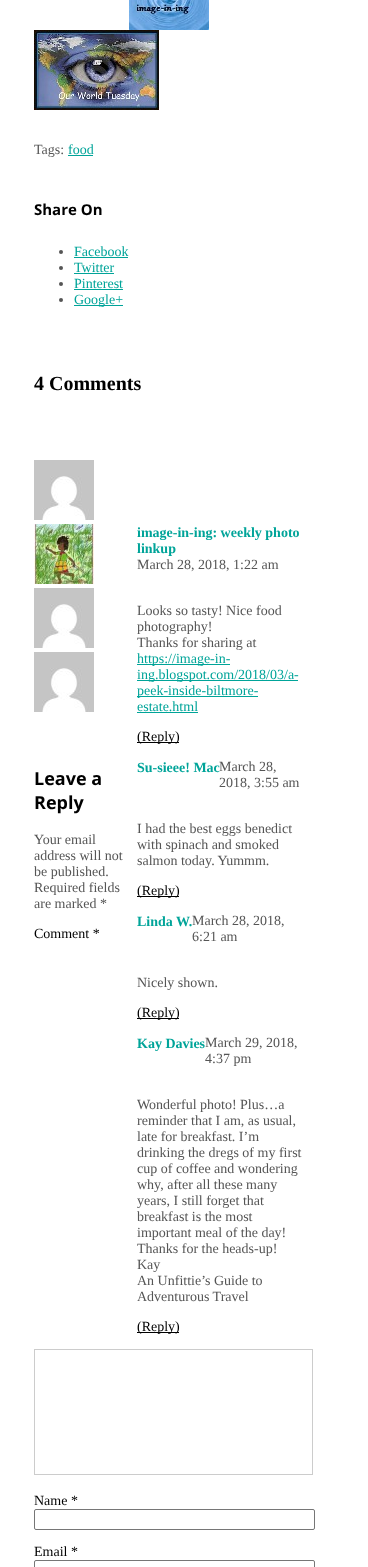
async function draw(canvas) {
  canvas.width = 368
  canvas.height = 1567
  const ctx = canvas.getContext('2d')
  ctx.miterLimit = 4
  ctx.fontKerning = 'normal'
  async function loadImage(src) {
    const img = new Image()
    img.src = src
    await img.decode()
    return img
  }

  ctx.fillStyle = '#fff'
  ctx.fillRect(0, 0, 368, 1567)
  ctx.drawImage(await loadImage('image0.png'), 129, 0, 80, 30)
  ctx.drawImage(await loadImage('image1.png'), 34, 30, 125, 80)
  ctx.font = '14px Liberation Serif'
  ctx.fillStyle = '#555'
  ctx.fillText('Tags:', 34, 154)
  ctx.fillStyle = '#00a499'
  ctx.fillText('food', 68, 154)
  ctx.fillRect(68, 155, 25, 1)
  ctx.font = 'bold 15px Open Sans'
  ctx.fillStyle = '#000'
  ctx.fillText('Share On', 34, 215)
  ctx.fillStyle = '#555'
  ctx.beginPath()
  ctx.arc(61, 252, 2, 0, 2 * Math.PI)
  ctx.fill()
  ctx.font = '14px Liberation Serif'
  ctx.fillStyle = '#00a499'
  ctx.fillText('Facebook', 74, 256)
  ctx.fillRect(74, 257, 54, 1)
  ctx.fillStyle = '#555'
  ctx.beginPath()
  ctx.arc(61, 268, 2, 0, 2 * Math.PI)
  ctx.fill()
  ctx.fillStyle = '#00a499'
  ctx.fillText('Twitter', 74, 272)
  ctx.fillRect(74, 273, 40, 1)
  ctx.fillStyle = '#555'
  ctx.beginPath()
  ctx.arc(61, 284, 2, 0, 2 * Math.PI)
  ctx.fill()
  ctx.fillStyle = '#00a499'
  ctx.fillText('Pinterest', 74, 288)
  ctx.fillRect(74, 289, 49, 1)
  ctx.fillStyle = '#555'
  ctx.beginPath()
  ctx.arc(61, 300, 2, 0, 2 * Math.PI)
  ctx.fill()
  ctx.fillStyle = '#00a499'
  ctx.fillRect(74, 305, 49, 1)
  ctx.fillText('Google+', 74, 304)
  ctx.font = 'bold 20px Liberation Serif'
  ctx.fillStyle = '#000'
  ctx.fillText('4 Comments', 34, 390)
  ctx.drawImage(await loadImage('image2.png'), 34, 460, 60, 60)
  ctx.font = 'bold 14px Liberation Serif'
  ctx.fillStyle = '#00a499'
  ctx.fillText('image-in-ing: weekly photo', 137, 537)
  ctx.fillText('linkup', 137, 553)
  ctx.font = '14px Liberation Serif'
  ctx.fillStyle = '#555'
  ctx.fillText('March 28, 2018, 1:22 am', 137, 569)
  ctx.fillText('Looks so tasty! Nice food', 137, 615)
  ctx.fillText('photography!', 137, 631)
  ctx.fillText('Thanks for sharing at', 137, 647)
  ctx.fillStyle = '#00a499'
  ctx.fillRect(137, 664, 93, 1)
  ctx.fillText('https://image-in-', 137, 663)
  ctx.fillRect(137, 680, 161, 1)
  ctx.fillText('ing.blogspot.com/2018/03/a-', 137, 679)
  ctx.fillRect(137, 696, 121, 1)
  ctx.fillText('peek-inside-biltmore-', 137, 695)
  ctx.fillText('estate.html', 137, 711)
  ctx.fillRect(137, 712, 61, 1)
  ctx.fillStyle = '#000'
  ctx.fillRect(137, 742, 42, 1)
  ctx.fillText('(Reply)', 137, 741)
  ctx.drawImage(await loadImage('image3.png'), 34, 524, 60, 60)
  ctx.font = 'bold 14px Liberation Serif'
  ctx.fillStyle = '#00a499'
  ctx.fillText('Su-sieee! Mac', 137, 772)
  ctx.font = '14px Liberation Serif'
  ctx.fillStyle = '#555'
  ctx.fillText('March 28,', 219, 771)
  ctx.fillText('2018, 3:55 am', 219, 787)
  ctx.fillText('I had the best eggs benedict', 137, 833)
  ctx.fillText('with spinach and smoked', 137, 849)
  ctx.fillText('salmon today. Yummm.', 137, 865)
  ctx.fillStyle = '#000'
  ctx.fillRect(137, 896, 42, 1)
  ctx.fillText('(Reply)', 137, 895)
  ctx.drawImage(await loadImage('image2.png'), 34, 588, 60, 60)
  ctx.font = 'bold 14px Liberation Serif'
  ctx.fillStyle = '#00a499'
  ctx.fillText('Linda W.', 137, 926)
  ctx.font = '14px Liberation Serif'
  ctx.fillStyle = '#555'
  ctx.fillText('March 28, 2018,', 192, 925)
  ctx.fillText('6:21 am', 192, 941)
  ctx.fillText('Nicely shown.', 137, 987)
  ctx.fillStyle = '#000'
  ctx.fillRect(137, 1018, 42, 1)
  ctx.fillText('(Reply)', 137, 1017)
  ctx.drawImage(await loadImage('image2.png'), 34, 652, 60, 60)
  ctx.font = 'bold 14px Liberation Serif'
  ctx.fillStyle = '#00a499'
  ctx.fillText('Kay Davies', 137, 1048)
  ctx.font = '14px Liberation Serif'
  ctx.fillStyle = '#555'
  ctx.fillText('March 29, 2018,', 205, 1047)
  ctx.fillText('4:37 pm', 205, 1063)
  ctx.fillText('Wonderful photo! Plus…a', 137, 1109)
  ctx.fillText('reminder that I am, as usual,', 137, 1125)
  ctx.fillText('late for breakfast. I’m', 137, 1141)
  ctx.fillText('drinking the dregs of my first', 137, 1157)
  ctx.fillText('cup of coffee and wondering', 137, 1173)
  ctx.fillText('why, after all these many', 137, 1189)
  ctx.fillText('years, I still forget that', 137, 1205)
  ctx.fillText('breakfast is the most', 137, 1221)
  ctx.fillText('important meal of the day!', 137, 1237)
  ctx.fillText('Thanks for the heads-up!', 137, 1253)
  ctx.fillText('Kay', 137, 1269)
  ctx.fillText('An Unfittie’s Guide to', 137, 1285)
  ctx.fillText('Adventurous Travel', 137, 1301)
  ctx.fillStyle = '#000'
  ctx.fillRect(137, 1332, 42, 1)
  ctx.fillText('(Reply)', 137, 1331)
  ctx.font = 'bold 18px Open Sans'
  ctx.fillText('Leave a', 34, 785)
  ctx.fillText('Reply', 34, 809)
  ctx.font = '14px Liberation Serif'
  ctx.fillStyle = '#555'
  ctx.fillText('Your email', 34, 844)
  ctx.fillText('address will not', 34, 860)
  ctx.fillText('be published.', 34, 876)
  ctx.fillText('Required fields', 34, 892)
  ctx.fillText('are marked *', 34, 908)
  ctx.fillStyle = '#000'
  ctx.fillText('Comment *', 34, 938)
  ctx.strokeStyle = '#ccc'
  ctx.strokeRect(34.5, 1349.5, 278, 125)
  ctx.fillText('Name *', 34, 1505)
  ctx.beginPath()
  ctx.roundRect(34.5, 1509.5, 280, 20, 1.5)
  ctx.strokeStyle = '#767676'
  ctx.stroke()
  ctx.fillText('Email *', 34, 1556)
  ctx.beginPath()
  ctx.roundRect(34.5, 1560.5, 280, 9, 1.5)
  ctx.stroke()
}

draw(document.querySelector('canvas'))
